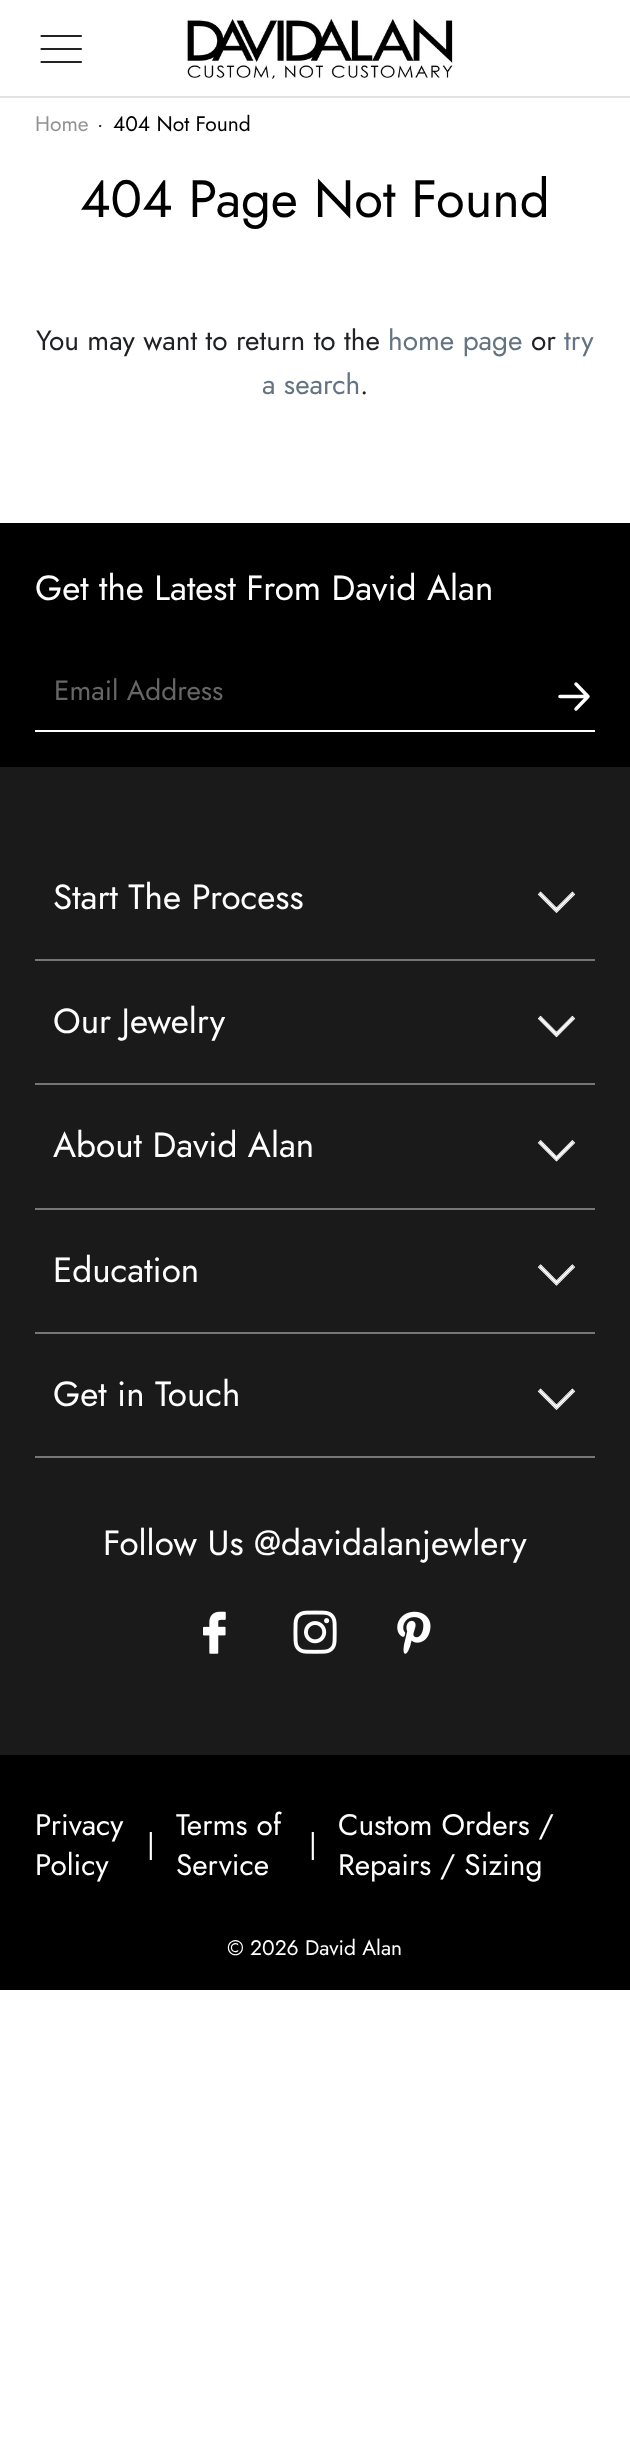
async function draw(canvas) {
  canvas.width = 630
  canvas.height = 2454
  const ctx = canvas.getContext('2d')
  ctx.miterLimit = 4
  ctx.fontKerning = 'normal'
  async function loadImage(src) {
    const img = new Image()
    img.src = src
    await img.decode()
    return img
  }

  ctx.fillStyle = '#fff'
  ctx.fillRect(0, 0, 630, 2454)
  ctx.fillStyle = '#e2e2e2'
  ctx.fillRect(0, 96, 630, 2)
  ctx.beginPath()
  ctx.moveTo(41.5, 49)
  ctx.lineTo(81, 49)
  ctx.moveTo(41.5, 36)
  ctx.lineTo(81, 36)
  ctx.moveTo(41.5, 62)
  ctx.lineTo(81, 62)
  ctx.strokeStyle = '#232323'
  ctx.lineWidth = 2.2
  ctx.lineCap = 'round'
  ctx.lineJoin = 'round'
  ctx.stroke()
  ctx.drawImage(await loadImage('image0.png'), 186, 19, 267, 60)
  ctx.font = '21px Jost'
  ctx.fillStyle = '#929292'
  ctx.fillText('Home', 35, 131)
  ctx.fillStyle = '#202124'
  ctx.fillText('·', 97, 131)
  ctx.fillStyle = '#000'
  ctx.fillText('404 Not Found', 113, 131)
  ctx.font = '52.5px Jost'
  ctx.fillText('404 Page Not Found', 80, 217)
  ctx.font = '28px Jost'
  ctx.fillStyle = '#202124'
  ctx.fillText('You may want to return to the', 36, 350)
  ctx.fillStyle = '#637381'
  ctx.fillText('home page', 388, 350)
  ctx.fillStyle = '#202124'
  ctx.fillText('or', 531, 350)
  ctx.fillStyle = '#637381'
  ctx.fillText('try', 564, 350)
  ctx.fillText('a search', 262, 394)
  ctx.fillStyle = '#202124'
  ctx.fillText('.', 360, 394)
  ctx.fillStyle = '#000'
  ctx.fillRect(0, 523, 630, 244)
  ctx.font = '35px Jost'
  ctx.fillStyle = '#fff'
  ctx.fillText('Get the Latest From David Alan', 35, 600)
  ctx.fillRect(35, 730, 560, 2)
  ctx.font = '28px Jost'
  ctx.fillStyle = '#666'
  ctx.fillText('Email Address', 54, 700)
  ctx.beginPath()
  ctx.moveTo(588, 696.5)
  ctx.lineTo(560, 696.5)
  ctx.moveTo(576, 709)
  ctx.lineTo(588, 696.5)
  ctx.lineTo(576, 684)
  ctx.strokeStyle = '#fff'
  ctx.lineWidth = 3.5
  ctx.stroke()
  ctx.fillStyle = '#1a1a1a'
  ctx.fillRect(0, 767, 630, 988)
  ctx.fillStyle = '#767676'
  ctx.fillRect(35, 959, 560, 2)
  ctx.font = '35px Jost'
  ctx.fillStyle = '#fff'
  ctx.fillText('Start The Process', 53, 909)
  ctx.drawImage(await loadImage('image1.png'), 537, 891, 39, 22)
  ctx.fillStyle = '#767676'
  ctx.fillRect(35, 1083, 560, 2)
  ctx.fillStyle = '#fff'
  ctx.fillText('Our Jewelry', 53, 1033)
  ctx.drawImage(await loadImage('image2.png'), 537, 1015, 39, 23)
  ctx.fillStyle = '#767676'
  ctx.fillRect(35, 1208, 560, 2)
  ctx.fillStyle = '#fff'
  ctx.fillText('About David Alan', 53, 1157)
  ctx.drawImage(await loadImage('image3.png'), 537, 1140, 39, 22)
  ctx.fillStyle = '#767676'
  ctx.fillRect(35, 1332, 560, 2)
  ctx.fillStyle = '#fff'
  ctx.fillText('Education', 53, 1282)
  ctx.drawImage(await loadImage('image4.png'), 537, 1264, 39, 22)
  ctx.fillStyle = '#767676'
  ctx.fillRect(35, 1456, 560, 2)
  ctx.fillStyle = '#fff'
  ctx.fillText('Get in Touch', 53, 1406)
  ctx.drawImage(await loadImage('image1.png'), 537, 1388, 39, 22)
  ctx.fillText('Follow Us @davidalanjewlery', 103, 1555)
  ctx.drawImage(await loadImage('image5.png'), 203, 1611, 23, 43)
  ctx.drawImage(await loadImage('image6.png'), 293, 1610, 44, 44)
  ctx.drawImage(await loadImage('image7.png'), 397, 1611, 34, 43)
  ctx.fillStyle = '#000'
  ctx.fillRect(0, 1755, 630, 235)
  ctx.font = '29.75px Jost'
  ctx.fillStyle = '#fff'
  ctx.fillText('Privacy', 35, 1835)
  ctx.fillText('Policy', 35, 1875)
  ctx.font = '28px Jost'
  ctx.fillText('|', 147, 1854)
  ctx.font = '29.75px Jost'
  ctx.fillText('Terms of', 176, 1835)
  ctx.fillText('Service', 176, 1875)
  ctx.font = '28px Jost'
  ctx.fillText('|', 309, 1854)
  ctx.font = '29.75px Jost'
  ctx.fillText('Custom Orders /', 338, 1835)
  ctx.fillText('Repairs / Sizing', 338, 1875)
  ctx.font = '21px Jost'
  ctx.fillText('© 2026 David Alan', 227, 1955)
}

draw(document.querySelector('canvas'))
